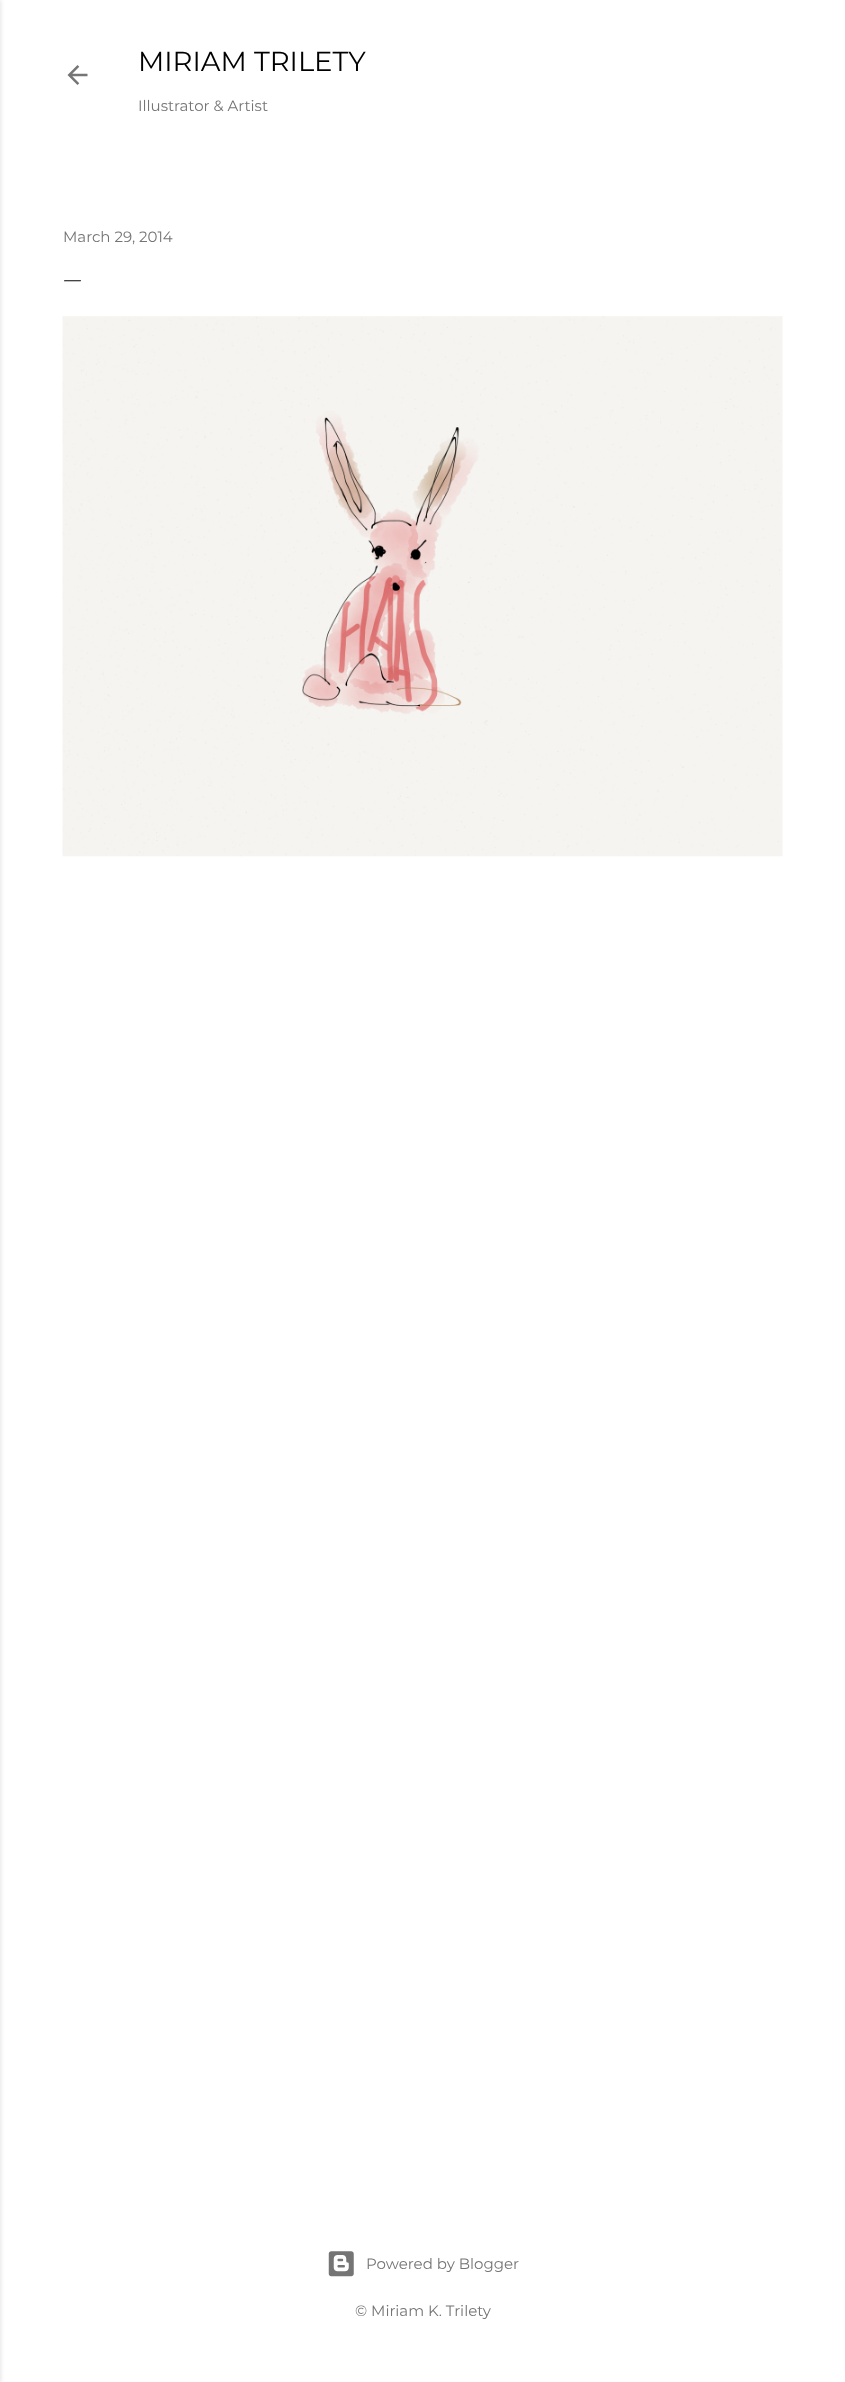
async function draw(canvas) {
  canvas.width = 845
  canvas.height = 2382
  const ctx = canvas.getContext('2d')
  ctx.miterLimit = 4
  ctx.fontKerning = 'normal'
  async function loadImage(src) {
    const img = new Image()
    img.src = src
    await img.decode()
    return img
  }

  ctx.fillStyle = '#fff'
  ctx.fillRect(0, 0, 845, 2382)
  ctx.fillStyle = '#0000001a'
  ctx.filter = 'blur(2px)'
  ctx.beginPath()
  ctx.rect(-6, 0, 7, 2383)
  ctx.fill()
  ctx.filter = 'none'
  ctx.drawImage(await loadImage('image0.png'), 67, 65, 21, 20)
  ctx.font = '27.5px Montserrat'
  ctx.fillStyle = '#000'
  ctx.fillText('MIRIAM TRILETY', 138, 71)
  ctx.font = '15px Montserrat'
  ctx.fillStyle = '#757575'
  ctx.fillText('Illustrator & Artist', 138, 111)
  ctx.fillText('March 29, 2014', 63, 242)
  ctx.font = '20px EB Garamond'
  ctx.fillStyle = '#000'
  ctx.fillText('—', 63, 285)
  ctx.drawImage(await loadImage('image1.png'), 62, 316, 721, 541)
  ctx.drawImage(await loadImage('image2.png'), 328, 2251, 26, 26)
  ctx.font = '15px Montserrat'
  ctx.fillStyle = '#757575'
  ctx.fillText('Powered by Blogger', 366, 2269)
  ctx.fillText('© Miriam K. Trilety', 355, 2316)
}

draw(document.querySelector('canvas'))
